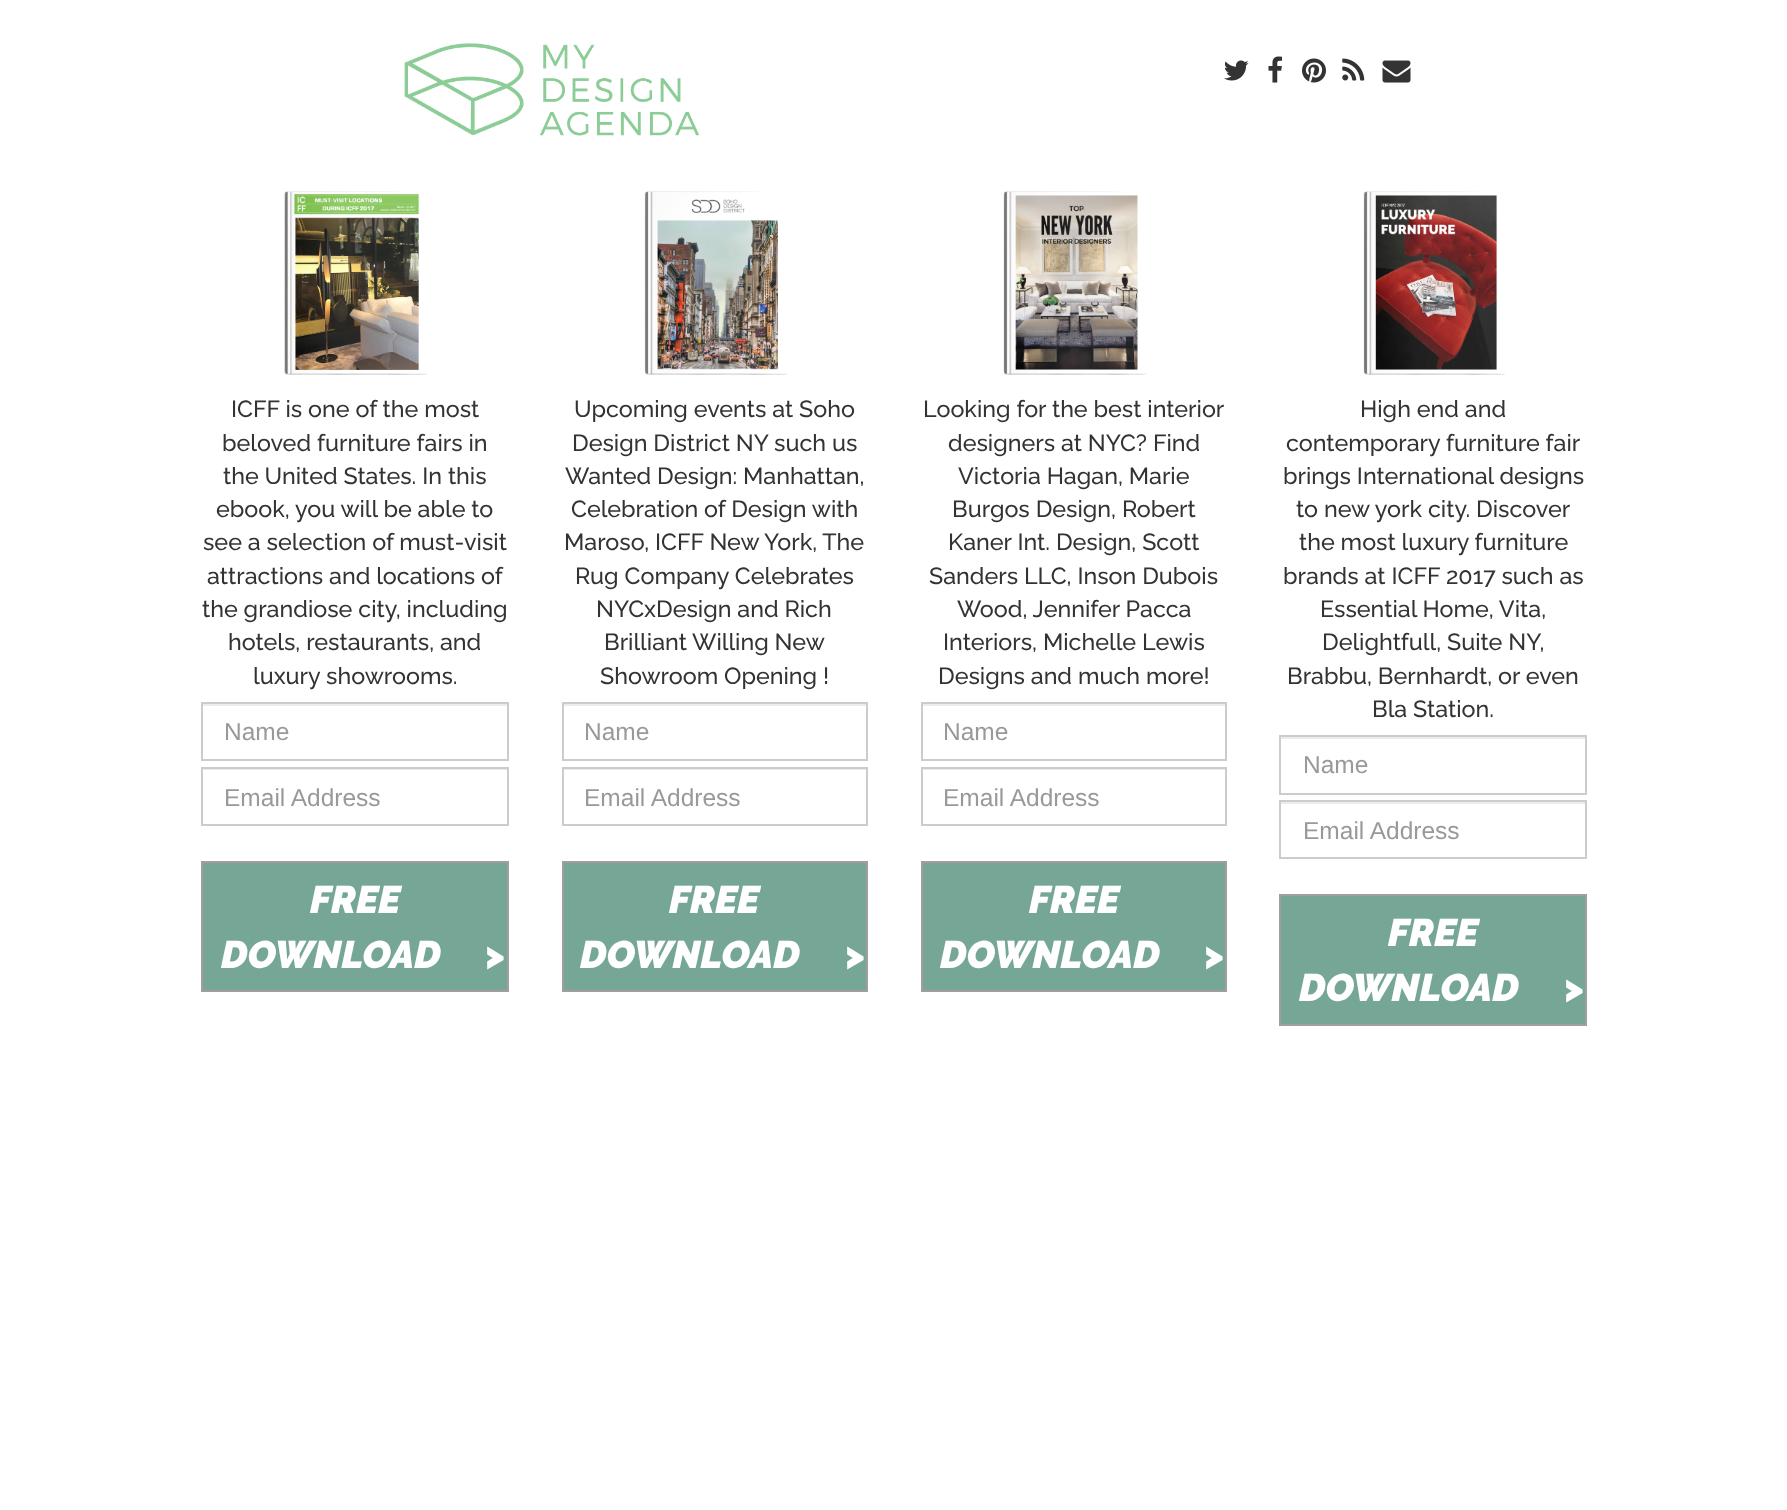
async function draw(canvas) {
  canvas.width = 1787
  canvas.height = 1510
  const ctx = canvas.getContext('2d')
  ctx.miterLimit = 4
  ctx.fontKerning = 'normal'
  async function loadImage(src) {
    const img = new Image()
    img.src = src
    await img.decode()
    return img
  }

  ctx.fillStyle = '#fff'
  ctx.fillRect(0, 0, 1787, 1510)
  ctx.drawImage(await loadImage('image0.png'), 404, 43, 296, 93)
  ctx.drawImage(await loadImage('image1.png'), 1224, 60, 25, 21)
  ctx.drawImage(await loadImage('image2.png'), 1268, 56, 14, 27)
  ctx.drawImage(await loadImage('image3.png'), 1302, 58, 24, 25)
  ctx.drawImage(await loadImage('image4.png'), 1342, 58, 23, 23)
  ctx.drawImage(await loadImage('image5.png'), 1382, 60, 29, 23)
  ctx.drawImage(await loadImage('image6.png'), 284, 191, 143, 184)
  ctx.font = '100 23.3px Raleway'
  ctx.fillStyle = '#333'
  ctx.fillText('ICFF is one of the most', 231, 417)
  ctx.fillText('beloved furniture fairs in', 222, 451)
  ctx.fillText('the United States. In this', 223, 484)
  ctx.fillText('ebook, you will be able to', 216, 517)
  ctx.fillText('see a selection of must-visit', 203, 550)
  ctx.fillText('attractions and locations of', 207, 584)
  ctx.fillText('the grandiose city, including', 202, 617)
  ctx.fillText('hotels, restaurants, and', 228, 650)
  ctx.fillText('luxury showrooms.', 253, 684)
  ctx.fillStyle = '#ececec'
  ctx.fillRect(203, 704, 305, 2)
  ctx.strokeStyle = '#ccc'
  ctx.lineWidth = 2
  ctx.strokeRect(202, 703, 306, 57)
  ctx.font = '24.5px Liberation Sans'
  ctx.fillStyle = '#999'
  ctx.fillText('Name', 224, 740)
  ctx.fillStyle = '#ececec'
  ctx.fillRect(203, 769, 305, 1)
  ctx.strokeRect(202, 768, 306, 57)
  ctx.fillStyle = '#999'
  ctx.fillText('Email Address', 224, 806)
  ctx.fillStyle = '#76a696'
  ctx.beginPath()
  ctx.rect(202, 862, 306, 129)
  ctx.fill()
  ctx.strokeStyle = '#a39e9e'
  ctx.stroke()
  ctx.font = 'italic 100 38.5px Raleway'
  ctx.fillStyle = '#fff'
  ctx.fillText('FREE', 310, 913)
  ctx.fillText('DOWNLOAD', 221, 968)
  ctx.fillText('>', 484, 968)
  ctx.drawImage(await loadImage('image7.png'), 644, 191, 143, 184)
  ctx.font = '100 23.3px Raleway'
  ctx.fillStyle = '#333'
  ctx.fillText('Upcoming events at Soho', 574, 417)
  ctx.fillText('Design District NY such us', 572, 451)
  ctx.fillText('Wanted Design: Manhattan,', 565, 484)
  ctx.fillText('Celebration of Design with', 571, 517)
  ctx.fillText('Maroso, ICFF New York, The', 564, 550)
  ctx.fillText('Rug Company Celebrates', 575, 584)
  ctx.fillText('NYCxDesign and Rich', 596, 617)
  ctx.fillText('Brilliant Willing New', 604, 650)
  ctx.fillText('Showroom Opening !', 600, 684)
  ctx.fillStyle = '#ececec'
  ctx.fillRect(564, 704, 302, 2)
  ctx.strokeStyle = '#ccc'
  ctx.strokeRect(563, 703, 304, 57)
  ctx.font = '24.5px Liberation Sans'
  ctx.fillStyle = '#999'
  ctx.fillText('Name', 584, 740)
  ctx.fillStyle = '#ececec'
  ctx.fillRect(564, 769, 302, 1)
  ctx.strokeRect(563, 768, 304, 57)
  ctx.fillStyle = '#999'
  ctx.fillText('Email Address', 584, 806)
  ctx.fillStyle = '#76a696'
  ctx.beginPath()
  ctx.rect(563, 862, 304, 129)
  ctx.fill()
  ctx.strokeStyle = '#a39e9e'
  ctx.stroke()
  ctx.font = 'italic 100 38.5px Raleway'
  ctx.fillStyle = '#fff'
  ctx.fillText('FREE', 669, 913)
  ctx.fillText('DOWNLOAD', 580, 968)
  ctx.fillText('>', 844, 968)
  ctx.drawImage(await loadImage('image8.png'), 1003, 191, 143, 184)
  ctx.font = '100 23.3px Raleway'
  ctx.fillStyle = '#333'
  ctx.fillText('Looking for the best interior', 923, 417)
  ctx.fillText('designers at NYC? Find', 948, 451)
  ctx.fillText('Victoria Hagan, Marie', 958, 484)
  ctx.fillText('Burgos Design, Robert', 952, 517)
  ctx.fillText('Kaner Int. Design, Scott', 948, 550)
  ctx.fillText('Sanders LLC, Inson Dubois', 929, 584)
  ctx.fillText('Wood, Jennifer Pacca', 957, 617)
  ctx.fillText('Interiors, Michelle Lewis', 943, 650)
  ctx.fillText('Designs and much more!', 938, 684)
  ctx.fillStyle = '#ececec'
  ctx.fillRect(922, 704, 303, 2)
  ctx.strokeStyle = '#ccc'
  ctx.strokeRect(922, 703, 304, 57)
  ctx.font = '24.5px Liberation Sans'
  ctx.fillStyle = '#999'
  ctx.fillText('Name', 943, 740)
  ctx.fillStyle = '#ececec'
  ctx.fillRect(922, 769, 303, 1)
  ctx.strokeRect(922, 768, 304, 57)
  ctx.fillStyle = '#999'
  ctx.fillText('Email Address', 943, 806)
  ctx.fillStyle = '#76a696'
  ctx.beginPath()
  ctx.rect(922, 862, 304, 129)
  ctx.fill()
  ctx.strokeStyle = '#a39e9e'
  ctx.stroke()
  ctx.font = 'italic 100 38.5px Raleway'
  ctx.fillStyle = '#fff'
  ctx.fillText('FREE', 1029, 913)
  ctx.fillText('DOWNLOAD', 940, 968)
  ctx.fillText('>', 1203, 968)
  ctx.drawImage(await loadImage('image9.png'), 1363, 191, 142, 184)
  ctx.font = '100 23.3px Raleway'
  ctx.fillStyle = '#333'
  ctx.fillText('High end and', 1360, 417)
  ctx.fillText('contemporary furniture fair', 1286, 451)
  ctx.fillText('brings International designs', 1283, 484)
  ctx.fillText('to new york city. Discover', 1296, 517)
  ctx.fillText('the most luxury furniture', 1299, 550)
  ctx.fillText('brands at ICFF 2017 such as', 1283, 584)
  ctx.fillText('Essential Home, Vita,', 1320, 617)
  ctx.fillText('Delightfull, Suite NY,', 1322, 650)
  ctx.fillText('Brabbu, Bernhardt, or even', 1287, 684)
  ctx.fillText('Bla Station.', 1372, 717)
  ctx.fillStyle = '#ececec'
  ctx.fillRect(1281, 737, 305, 2)
  ctx.strokeStyle = '#ccc'
  ctx.strokeRect(1280, 736, 306, 58)
  ctx.font = '24.5px Liberation Sans'
  ctx.fillStyle = '#999'
  ctx.fillText('Name', 1303, 773)
  ctx.fillStyle = '#ececec'
  ctx.fillRect(1281, 802, 305, 2)
  ctx.strokeRect(1280, 801, 306, 57)
  ctx.fillStyle = '#999'
  ctx.fillText('Email Address', 1303, 839)
  ctx.fillStyle = '#76a696'
  ctx.beginPath()
  ctx.rect(1280, 895, 306, 130)
  ctx.fill()
  ctx.strokeStyle = '#a39e9e'
  ctx.stroke()
  ctx.font = 'italic 100 38.5px Raleway'
  ctx.fillStyle = '#fff'
  ctx.fillText('FREE', 1388, 946)
  ctx.fillText('DOWNLOAD', 1299, 1001)
  ctx.fillText('>', 1563, 1001)
}

draw(document.querySelector('canvas'))
